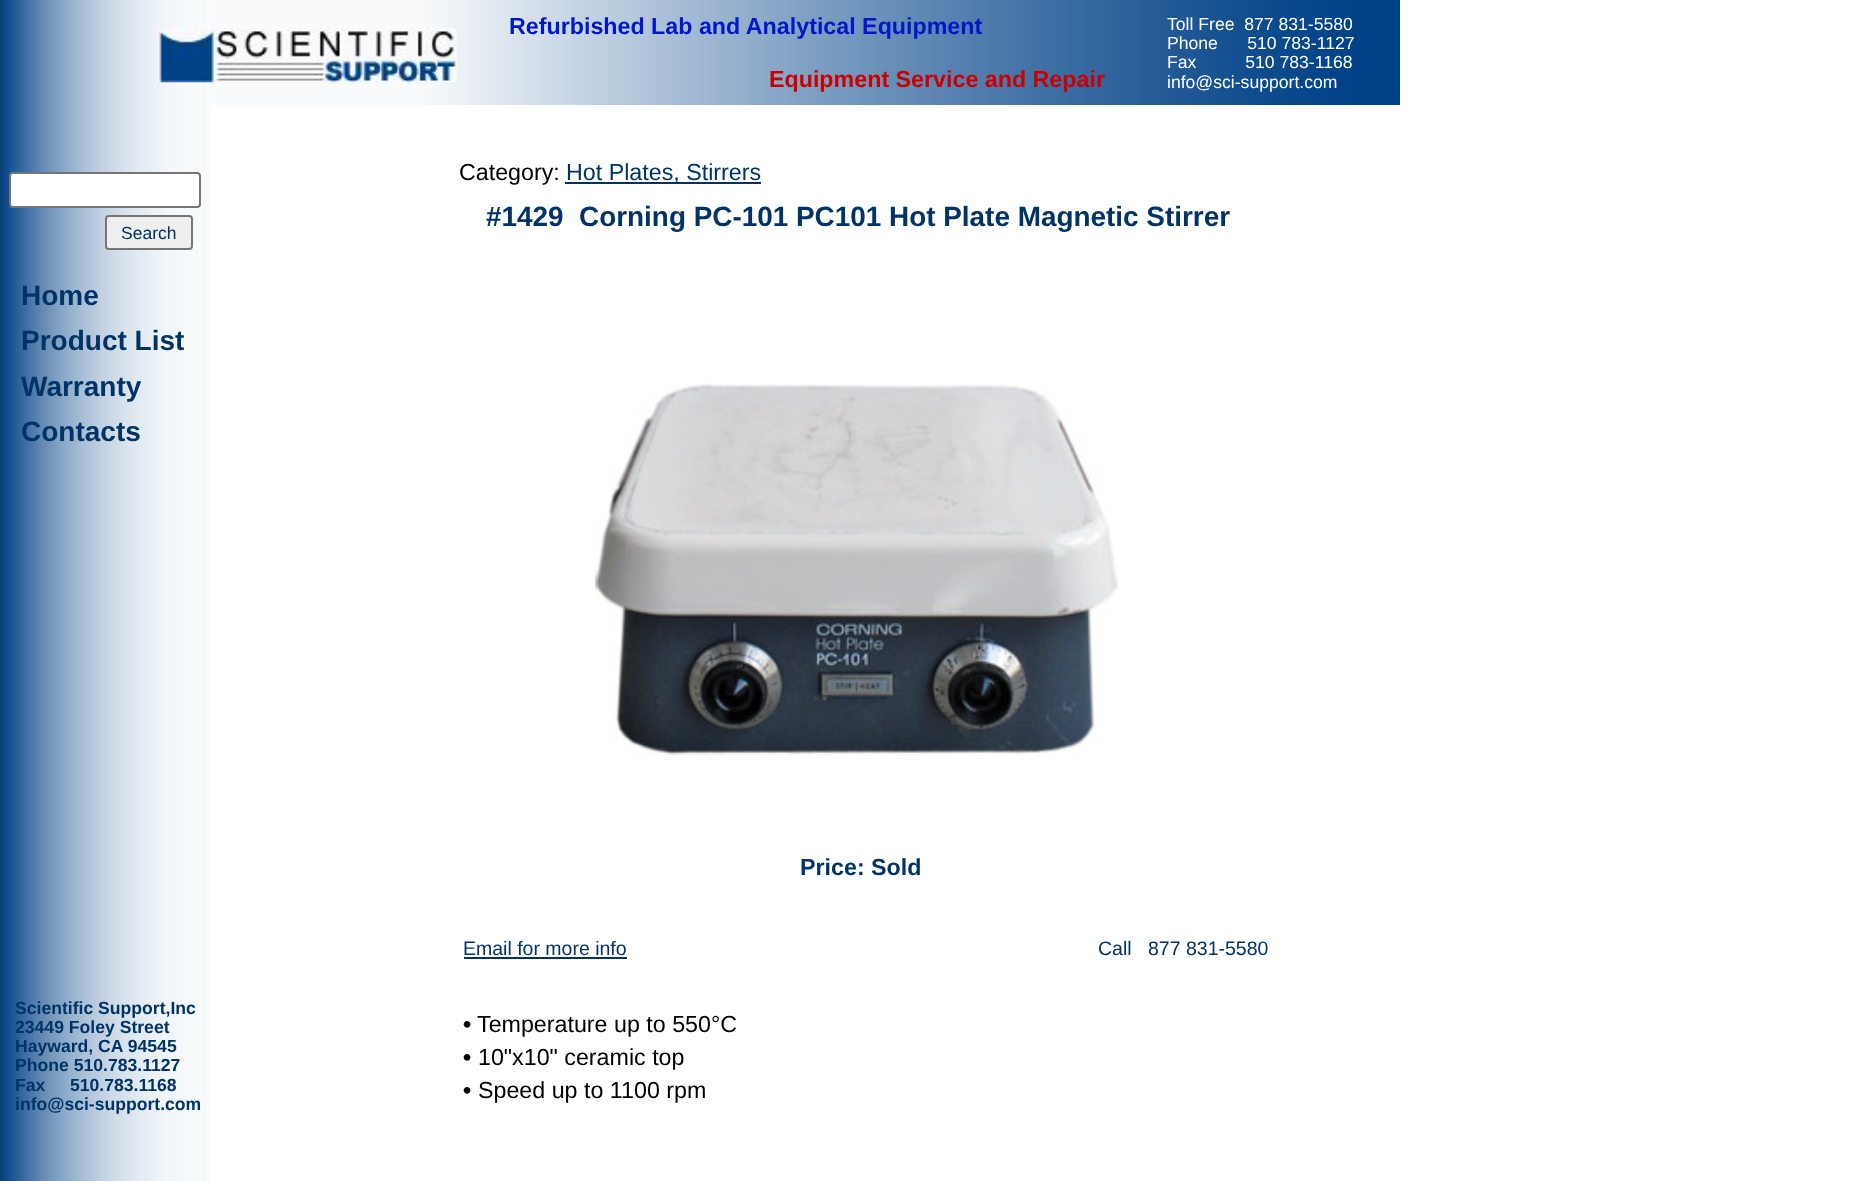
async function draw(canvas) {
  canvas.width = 1855
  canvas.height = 1181
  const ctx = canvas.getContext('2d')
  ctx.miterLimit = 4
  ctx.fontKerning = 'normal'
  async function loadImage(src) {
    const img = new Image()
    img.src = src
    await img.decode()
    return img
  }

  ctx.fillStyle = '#fff'
  ctx.fillRect(0, 0, 1855, 1181)
  ctx.drawImage(await loadImage('image1.png'), 210, 0, 1190, 105)
  ctx.drawImage(await loadImage('image2.png'), 0, 0, 210, 1181)
  ctx.drawImage(await loadImage('image0.png'), 157, 28, 300, 55)
  ctx.font = 'bold 23.25px Liberation Sans'
  ctx.fillStyle = '#0216ca'
  ctx.fillText('Refurbished Lab and Analytical Equipment', 509, 34)
  ctx.font = '17.6px Liberation Sans'
  ctx.fillStyle = '#fff'
  ctx.fillText('Toll Free  877 831-5580', 1167, 30)
  ctx.fillText('Phone      510 783-1127', 1167, 49)
  ctx.fillText('Fax          510 783-1168', 1167, 68)
  ctx.fillText('info@sci-support.com', 1167, 88)
  ctx.font = 'bold 23.25px Liberation Sans'
  ctx.fillStyle = '#c00'
  ctx.fillText('Equipment Service and Repair', 769, 87)
  ctx.fillStyle = '#fff'
  ctx.beginPath()
  ctx.roundRect(10, 173, 190, 34, 3)
  ctx.fill()
  ctx.strokeStyle = '#767676'
  ctx.lineWidth = 2
  ctx.stroke()
  ctx.fillStyle = '#efefef'
  ctx.beginPath()
  ctx.roundRect(106, 216, 86, 33, 3)
  ctx.fill()
  ctx.stroke()
  ctx.font = '17.5px Liberation Sans'
  ctx.fillStyle = '#036'
  ctx.fillText('Search', 121, 239)
  ctx.font = 'bold 28px Liberation Sans'
  ctx.fillText('Home', 21, 305)
  ctx.fillText('Product List', 21, 350)
  ctx.fillText('Warranty', 21, 396)
  ctx.fillText('Contacts', 21, 441)
  ctx.font = 'bold 17.6px Liberation Sans'
  ctx.fillText('Scientific Support,Inc', 15, 1014)
  ctx.fillText('23449 Foley Street', 15, 1033)
  ctx.fillText('Hayward, CA 94545', 15, 1052)
  ctx.fillText('Phone 510.783.1127', 15, 1071)
  ctx.fillText('Fax', 15, 1091)
  ctx.fillText('510.783.1168', 70, 1091)
  ctx.fillText('info@sci-support.com', 15, 1110)
  ctx.font = '23.25px Liberation Sans'
  ctx.fillStyle = '#000'
  ctx.fillText('Category:', 459, 180)
  ctx.fillStyle = '#036'
  ctx.fillRect(565, 182, 196, 2)
  ctx.fillText('Hot Plates, Stirrers', 566, 180)
  ctx.font = 'bold 27.9px Liberation Sans'
  ctx.fillText('#1429  Corning PC-101 PC101 Hot Plate Magnetic Stirrer', 486, 226)
  ctx.drawImage(await loadImage('image3.png'), 595, 383, 524, 373)
  ctx.font = 'bold 23.25px Liberation Sans'
  ctx.fillText('Price: Sold', 800, 875)
  ctx.font = '19.5px Liberation Sans'
  ctx.fillText('Email for more info', 463, 955)
  ctx.fillRect(464, 957, 163, 2)
  ctx.fillText('Call', 1098, 955)
  ctx.fillText('877 831-5580', 1148, 955)
  ctx.font = 'bold 23.25px Liberation Sans'
  ctx.fillStyle = '#000'
  ctx.fillText('•', 463, 1032)
  ctx.font = '23.25px Liberation Sans'
  ctx.fillText('Temperature up to 550°C', 477, 1032)
  ctx.font = 'bold 23.25px Liberation Sans'
  ctx.fillText('•', 463, 1065)
  ctx.font = '23.25px Liberation Sans'
  ctx.fillText('10"x10" ceramic top', 478, 1065)
  ctx.font = 'bold 23.25px Liberation Sans'
  ctx.fillText('•', 463, 1098)
  ctx.font = '23.25px Liberation Sans'
  ctx.fillText('Speed up to 1100 rpm', 478, 1098)
}

draw(document.querySelector('canvas'))
